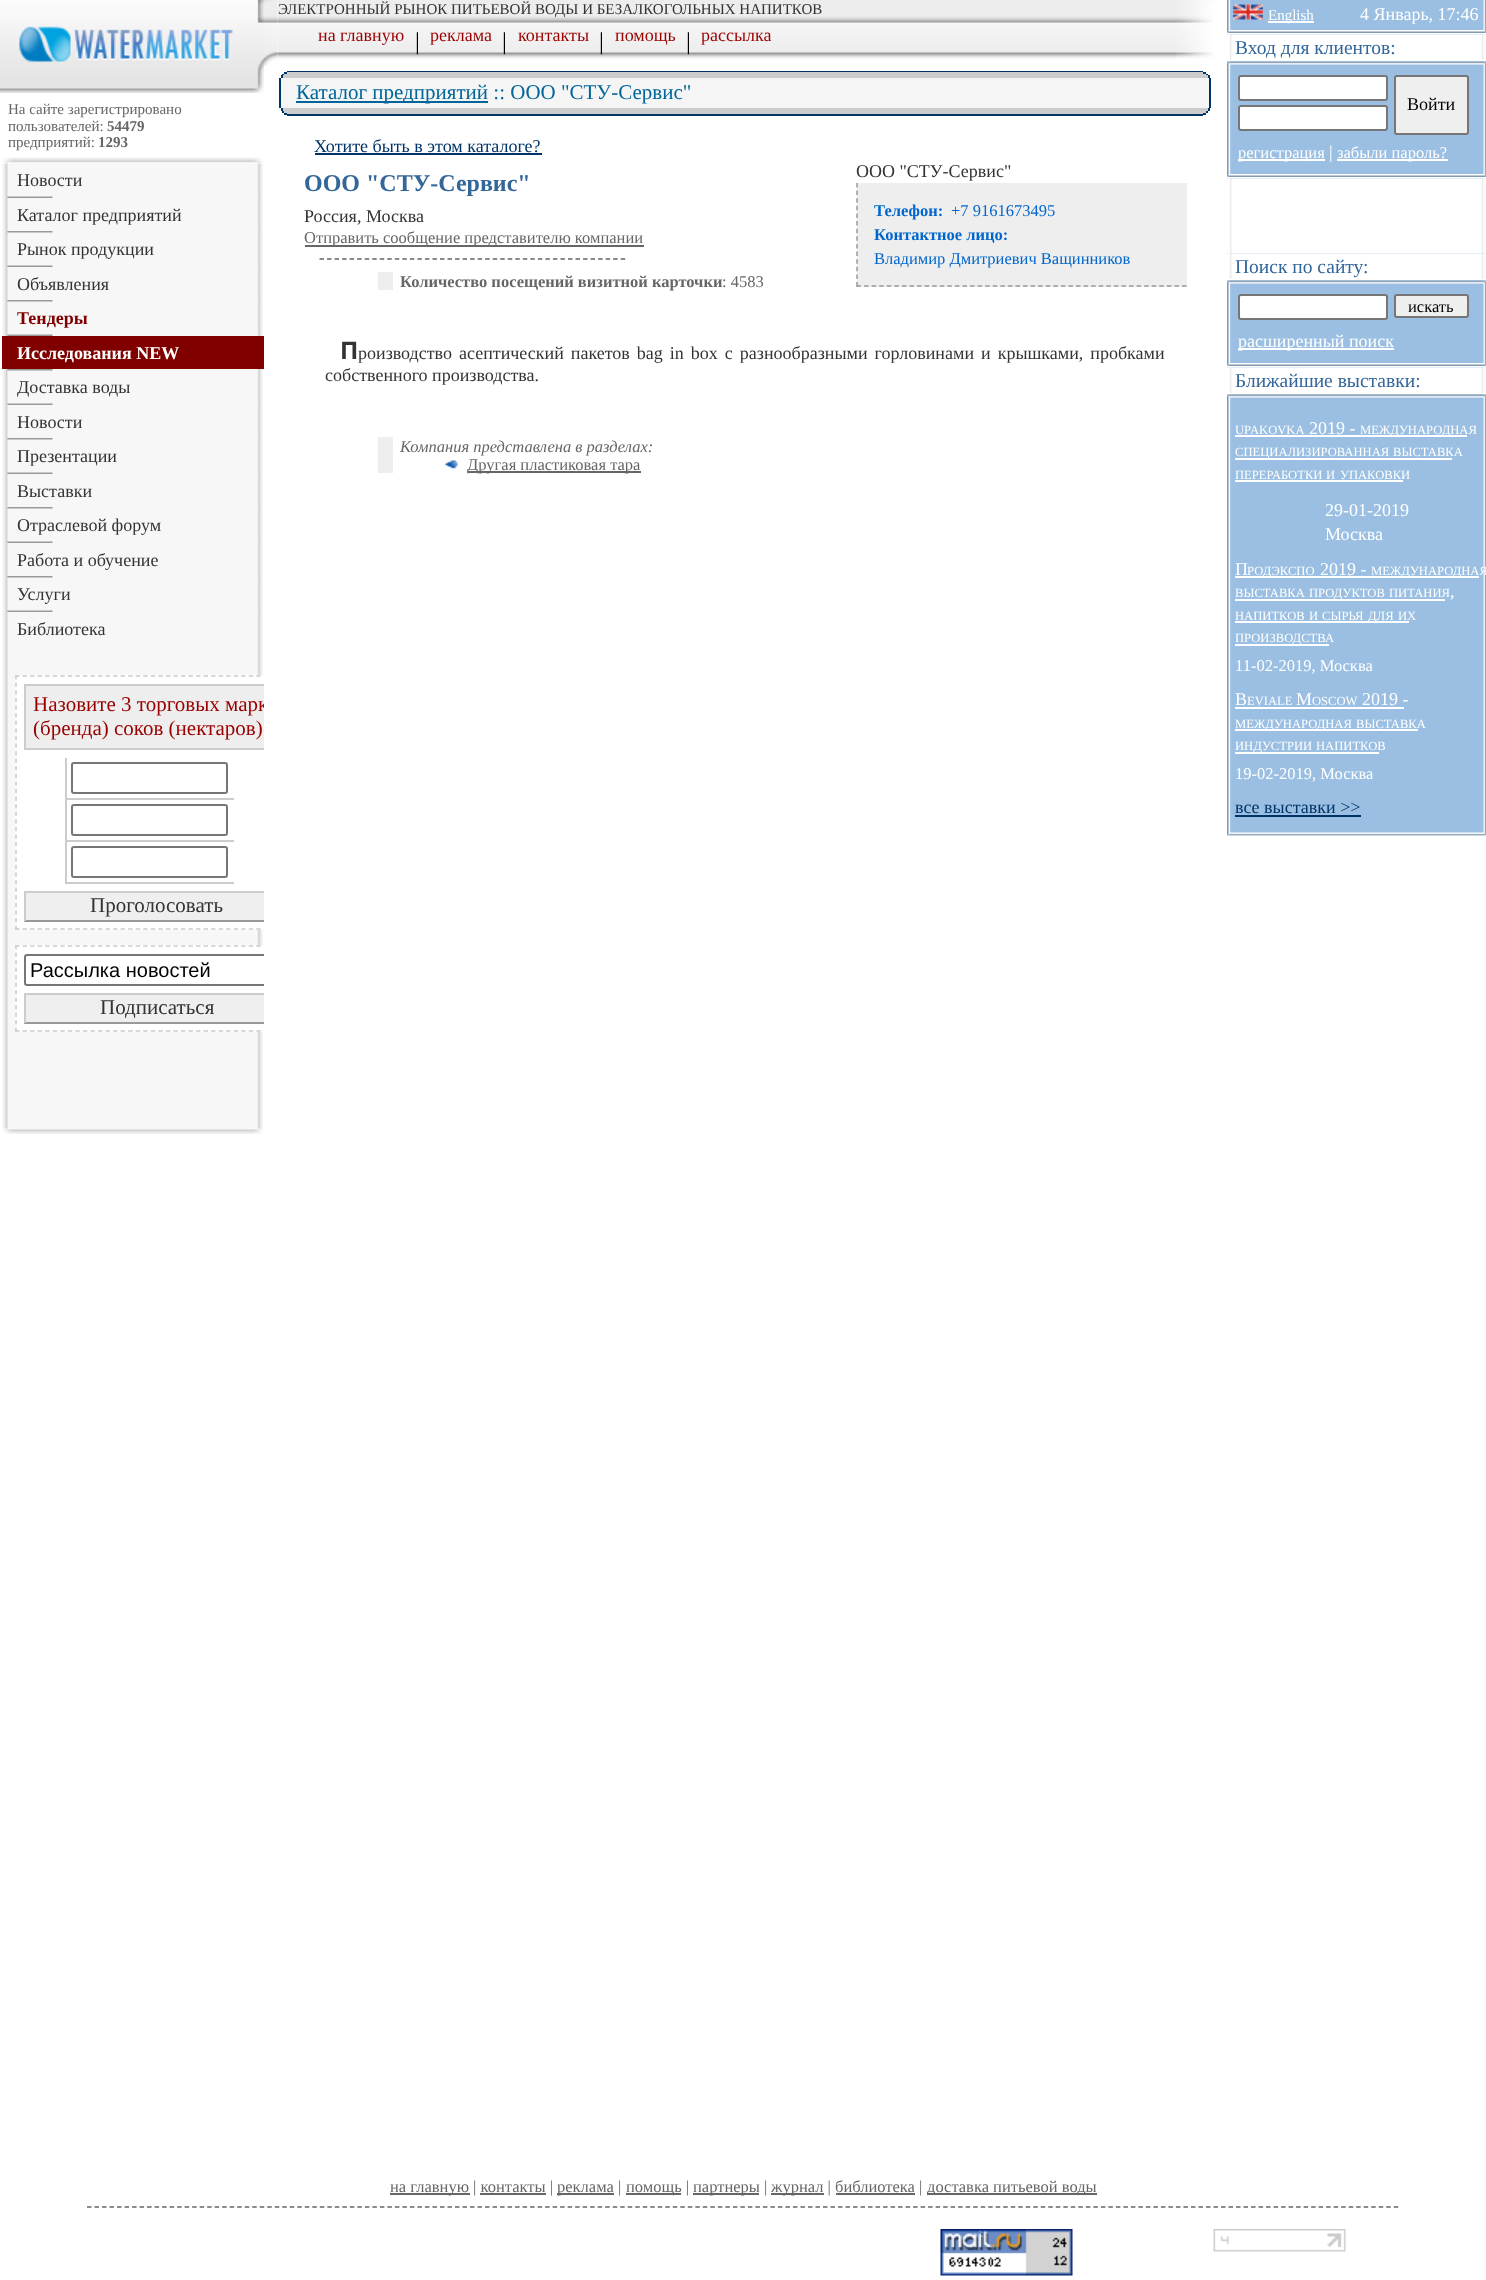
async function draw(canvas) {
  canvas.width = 1486
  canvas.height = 2280
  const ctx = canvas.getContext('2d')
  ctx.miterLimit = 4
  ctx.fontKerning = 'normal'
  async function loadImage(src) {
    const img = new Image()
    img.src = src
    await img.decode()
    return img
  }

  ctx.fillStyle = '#fff'
  ctx.fillRect(0, 0, 1486, 2280)
  ctx.drawImage(await loadImage('image0.png'), 0, 0, 264, 93)
  ctx.font = '15px Liberation Serif'
  ctx.fillStyle = '#666'
  ctx.fillText('На сайте зарегистрировано', 8, 114)
  ctx.fillText('пользователей:', 8, 131)
  ctx.font = 'bold 15px Liberation Serif'
  ctx.fillText('54479', 107, 131)
  ctx.font = '15px Liberation Serif'
  ctx.fillText('предприятий:', 8, 147)
  ctx.font = 'bold 15px Liberation Serif'
  ctx.fillText('1293', 98, 147)
  ctx.drawImage(await loadImage('image1.png'), 3, 157, 260, 6)
  ctx.drawImage(await loadImage('image2.png'), 2, 163, 261, 482)
  ctx.font = '18px Liberation Serif'
  ctx.fillStyle = '#333'
  ctx.fillText('Новости', 17, 186)
  ctx.drawImage(await loadImage('image3.png'), 7, 196, 257, 2)
  ctx.fillText('Каталог предприятий', 17, 221)
  ctx.drawImage(await loadImage('image4.png'), 7, 231, 257, 2)
  ctx.fillText('Рынок продукции', 17, 255)
  ctx.drawImage(await loadImage('image3.png'), 7, 265, 257, 2)
  ctx.fillText('Объявления', 17, 290)
  ctx.drawImage(await loadImage('image4.png'), 7, 300, 257, 2)
  ctx.font = 'bold 18px Liberation Serif'
  ctx.fillStyle = '#800000'
  ctx.fillText('Тендеры', 17, 324)
  ctx.drawImage(await loadImage('image3.png'), 7, 334, 257, 2)
  ctx.fillRect(2, 336, 262, 33)
  ctx.fillStyle = '#fff'
  ctx.fillText('Исследования NEW', 17, 359)
  ctx.drawImage(await loadImage('image4.png'), 7, 369, 257, 2)
  ctx.font = '18px Liberation Serif'
  ctx.fillStyle = '#333'
  ctx.fillText('Доставка воды', 17, 393)
  ctx.drawImage(await loadImage('image3.png'), 7, 403, 257, 2)
  ctx.fillText('Новости', 17, 428)
  ctx.drawImage(await loadImage('image4.png'), 7, 438, 257, 2)
  ctx.fillText('Презентации', 17, 462)
  ctx.drawImage(await loadImage('image3.png'), 7, 472, 257, 2)
  ctx.fillText('Выставки', 17, 497)
  ctx.drawImage(await loadImage('image4.png'), 7, 507, 257, 2)
  ctx.fillText('Отраслевой форум', 17, 531)
  ctx.drawImage(await loadImage('image3.png'), 7, 541, 257, 2)
  ctx.fillText('Работа и обучение', 17, 566)
  ctx.drawImage(await loadImage('image4.png'), 7, 576, 257, 2)
  ctx.fillText('Услуги', 17, 600)
  ctx.drawImage(await loadImage('image3.png'), 7, 610, 257, 2)
  ctx.fillText('Библиотека', 17, 635)
  ctx.drawImage(await loadImage('image5.png'), 2, 645, 261, 483)
  ctx.fillStyle = '#fff'
  ctx.fillRect(15, 675, 248, 255)
  ctx.save()
  ctx.beginPath()
  ctx.rect(0, 0, 264, 1404)
  ctx.clip()
  ctx.beginPath()
  ctx.moveTo(15, 676)
  ctx.lineTo(298.5, 676)
  ctx.strokeStyle = '#ccc'
  ctx.lineWidth = 1.5
  ctx.setLineDash([4.5, 3.04])
  ctx.stroke()
  ctx.beginPath()
  ctx.moveTo(15, 929)
  ctx.lineTo(298.5, 929)
  ctx.stroke()
  ctx.restore()
  ctx.beginPath()
  ctx.moveTo(16, 675)
  ctx.lineTo(16, 930)
  ctx.strokeStyle = '#ccc'
  ctx.lineWidth = 1.5
  ctx.setLineDash([4.5, 3.09])
  ctx.stroke()
  ctx.fillStyle = '#eee'
  ctx.fillRect(26, 686, 238, 62)
  ctx.save()
  ctx.beginPath()
  ctx.rect(0, 0, 264, 1404)
  ctx.clip()
  ctx.lineWidth = 2
  ctx.setLineDash([])
  ctx.strokeRect(25, 685, 264, 64)
  ctx.font = '21px Liberation Serif'
  ctx.fillStyle = '#900'
  ctx.fillText('Назовите 3 торговых марк', 33, 711)
  ctx.restore()
  ctx.font = '21px Liberation Serif'
  ctx.fillStyle = '#900'
  ctx.fillText('(бренда) соков (нектаров)', 33, 735)
  ctx.fillStyle = '#ccc'
  ctx.fillRect(65, 882, 169, 2)
  ctx.fillRect(65, 840, 2, 44)
  ctx.fillRect(65, 840, 169, 2)
  ctx.fillRect(65, 798, 2, 44)
  ctx.fillRect(65, 798, 169, 2)
  ctx.fillRect(65, 758, 2, 42)
  ctx.beginPath()
  ctx.roundRect(72, 763, 155, 30, 2)
  ctx.strokeStyle = '#767676'
  ctx.lineWidth = 2
  ctx.setLineDash([])
  ctx.stroke()
  ctx.beginPath()
  ctx.roundRect(72, 805, 155, 30, 2)
  ctx.stroke()
  ctx.beginPath()
  ctx.roundRect(72, 847, 155, 30, 2)
  ctx.stroke()
  ctx.fillStyle = '#efefef'
  ctx.fillRect(26, 893, 238, 27)
  ctx.fillStyle = '#ccc'
  ctx.fillRect(24, 891, 240, 2)
  ctx.fillStyle = '#999'
  ctx.fillRect(24, 920, 240, 2)
  ctx.fillStyle = '#ccc'
  ctx.fillRect(24, 891, 2, 30)
  ctx.fillStyle = '#333'
  ctx.fillText('Проголосовать', 90, 912)
  ctx.fillStyle = '#fff'
  ctx.fillRect(15, 945, 248, 87)
  ctx.save()
  ctx.beginPath()
  ctx.rect(0, 0, 264, 1404)
  ctx.clip()
  ctx.beginPath()
  ctx.moveTo(15, 946)
  ctx.lineTo(298.5, 946)
  ctx.strokeStyle = '#ccc'
  ctx.lineWidth = 1.5
  ctx.setLineDash([4.5, 3.04])
  ctx.stroke()
  ctx.beginPath()
  ctx.moveTo(15, 1031)
  ctx.lineTo(298.5, 1031)
  ctx.stroke()
  ctx.restore()
  ctx.beginPath()
  ctx.moveTo(16, 945)
  ctx.lineTo(16, 1032)
  ctx.strokeStyle = '#ccc'
  ctx.lineWidth = 1.5
  ctx.setLineDash([4.5, 3])
  ctx.stroke()
  ctx.save()
  ctx.beginPath()
  ctx.rect(0, 0, 264, 1404)
  ctx.clip()
  ctx.beginPath()
  ctx.roundRect(25, 955, 264, 30, 2)
  ctx.strokeStyle = '#767676'
  ctx.lineWidth = 2
  ctx.setLineDash([])
  ctx.stroke()
  ctx.restore()
  ctx.font = '20px Liberation Sans'
  ctx.fillStyle = '#000'
  ctx.fillText('Рассылка новостей', 30, 977)
  ctx.fillStyle = '#efefef'
  ctx.fillRect(26, 995, 238, 27)
  ctx.fillStyle = '#ccc'
  ctx.fillRect(24, 993, 240, 2)
  ctx.fillStyle = '#999'
  ctx.fillRect(24, 1022, 240, 2)
  ctx.fillStyle = '#ccc'
  ctx.fillRect(24, 993, 2, 30)
  ctx.font = '21px Liberation Serif'
  ctx.fillStyle = '#333'
  ctx.fillText('Подписаться', 100, 1014)
  ctx.drawImage(await loadImage('image6.png'), 3, 1128, 260, 6)
  ctx.drawImage(await loadImage('image8.png'), 277, 0, 899, 59)
  ctx.drawImage(await loadImage('image7.png'), 264, 0, 14, 66)
  ctx.font = '15px Liberation Serif'
  ctx.fillText('ЭЛЕКТРОННЫЙ РЫНОК ПИТЬЕВОЙ ВОДЫ И БЕЗАЛКОГОЛЬНЫХ НАПИТКОВ', 278, 14)
  ctx.font = '18px Liberation Serif'
  ctx.fillStyle = '#900'
  ctx.fillText('на главную', 318, 41)
  ctx.font = '24px Liberation Serif'
  ctx.fillStyle = '#000'
  ctx.fillText('|', 415, 49)
  ctx.font = '18px Liberation Serif'
  ctx.fillStyle = '#900'
  ctx.fillText('реклама', 430, 41)
  ctx.font = '24px Liberation Serif'
  ctx.fillStyle = '#000'
  ctx.fillText('|', 502, 49)
  ctx.font = '18px Liberation Serif'
  ctx.fillStyle = '#900'
  ctx.fillText('контакты', 518, 41)
  ctx.font = '24px Liberation Serif'
  ctx.fillStyle = '#000'
  ctx.fillText('|', 599, 49)
  ctx.font = '18px Liberation Serif'
  ctx.fillStyle = '#900'
  ctx.fillText('помощь', 615, 41)
  ctx.font = '24px Liberation Serif'
  ctx.fillStyle = '#000'
  ctx.fillText('|', 686, 49)
  ctx.font = '18px Liberation Serif'
  ctx.fillStyle = '#900'
  ctx.fillText('рассылка', 701, 41)
  ctx.drawImage(await loadImage('image9.png'), 1176, 0, 38, 59)
  ctx.fillStyle = '#036'
  ctx.fillRect(287, 71, 916, 1)
  ctx.fillStyle = '#ccc'
  ctx.fillRect(284, 72, 922, 2)
  ctx.fillStyle = '#036'
  ctx.fillRect(1203, 72, 3, 2)
  ctx.fillRect(284, 72, 3, 2)
  ctx.fillStyle = '#ccc'
  ctx.fillRect(282, 74, 926, 1)
  ctx.fillStyle = '#036'
  ctx.fillRect(1206, 74, 2, 1)
  ctx.fillRect(282, 74, 2, 1)
  ctx.fillStyle = '#ccc'
  ctx.fillRect(281, 75, 928, 3)
  ctx.fillStyle = '#036'
  ctx.fillRect(1208, 75, 2, 3)
  ctx.fillRect(281, 75, 2, 3)
  ctx.fillStyle = '#f5f5f5'
  ctx.fillRect(281, 78, 928, 30)
  ctx.fillStyle = '#036'
  ctx.fillRect(1209, 78, 2, 30)
  ctx.fillRect(279, 78, 2, 30)
  ctx.fillStyle = '#069'
  ctx.fillRect(296, 101, 192, 2)
  ctx.font = '21px Liberation Serif'
  ctx.fillText('Каталог предприятий :: ООО "СТУ-Сервис"', 296, 99)
  ctx.fillStyle = '#ccc'
  ctx.fillRect(281, 108, 928, 3)
  ctx.fillStyle = '#036'
  ctx.fillRect(1208, 108, 2, 3)
  ctx.fillRect(281, 108, 2, 3)
  ctx.fillStyle = '#ccc'
  ctx.fillRect(282, 111, 926, 2)
  ctx.fillStyle = '#036'
  ctx.fillRect(1206, 111, 2, 2)
  ctx.fillRect(282, 111, 2, 2)
  ctx.fillStyle = '#ccc'
  ctx.fillRect(284, 113, 922, 1)
  ctx.fillStyle = '#036'
  ctx.fillRect(1203, 113, 3, 2)
  ctx.fillRect(284, 113, 3, 2)
  ctx.fillRect(287, 114, 916, 2)
  ctx.font = '18px Liberation Serif'
  ctx.fillText('Хотите быть в этом каталоге?', 314, 152)
  ctx.fillRect(315, 153, 227, 2)
  ctx.font = 'bold 24px Liberation Serif'
  ctx.fillStyle = '#369'
  ctx.fillText('ООО "СТУ-Сервис"', 304, 191)
  ctx.font = '18px Liberation Serif'
  ctx.fillStyle = '#333'
  ctx.fillText('Россия, Москва', 304, 222)
  ctx.fillStyle = '#666'
  ctx.fillRect(305, 245, 339, 2)
  ctx.font = '16.5px Liberation Serif'
  ctx.fillText('Отправить сообщение представителю компании', 304, 243)
  ctx.beginPath()
  ctx.moveTo(319.5, 259)
  ctx.lineTo(625.5, 259)
  ctx.strokeStyle = '#666'
  ctx.setLineDash([4.5, 3.03])
  ctx.stroke()
  ctx.font = '18px Liberation Serif'
  ctx.fillStyle = '#333'
  ctx.fillText('ООО "СТУ-Сервис"', 856, 177)
  ctx.fillStyle = '#eee'
  ctx.fillRect(857, 183, 330, 104)
  ctx.beginPath()
  ctx.moveTo(856.5, 286)
  ctx.lineTo(1186.5, 286)
  ctx.strokeStyle = '#999'
  ctx.setLineDash([4.5, 3.07])
  ctx.stroke()
  ctx.beginPath()
  ctx.moveTo(857, 183)
  ctx.lineTo(857, 286.5)
  ctx.setLineDash([4.5, 3.12])
  ctx.stroke()
  ctx.font = 'bold 16.5px Liberation Serif'
  ctx.fillStyle = '#06c'
  ctx.fillText('Телефон:', 874, 216)
  ctx.font = '16.5px Liberation Serif'
  ctx.fillText('+7 9161673495', 951, 216)
  ctx.font = 'bold 16.5px Liberation Serif'
  ctx.fillText('Контактное лицо:', 874, 240)
  ctx.font = '16.5px Liberation Serif'
  ctx.fillText('Владимир Дмитриевич Ващинников', 874, 264)
  ctx.fillStyle = '#eee'
  ctx.fillRect(378, 272, 15, 18)
  ctx.font = 'bold 16.5px Liberation Serif'
  ctx.fillStyle = '#666'
  ctx.fillText('Количество посещений визитной карточки', 400, 287)
  ctx.font = '16.5px Liberation Serif'
  ctx.fillText(': 4583', 722, 287)
  ctx.font = 'bold 24px Noto Sans'
  ctx.fillStyle = '#333'
  ctx.fillText('П', 340, 359)
  ctx.wordSpacing = '2.5px'
  ctx.font = '18px Liberation Serif'
  ctx.fillText('роизводство асептический пакетов bag in box с разнообразными горловинами и крышками, пробками', 358, 359)
  ctx.wordSpacing = '0px'
  ctx.fillText('собственного производства.', 325, 381)
  ctx.fillStyle = '#eee'
  ctx.fillRect(378, 437, 15, 36)
  ctx.font = 'italic 16.5px Liberation Serif'
  ctx.fillStyle = '#666'
  ctx.fillText('Компания представлена в разделах:', 400, 452)
  ctx.drawImage(await loadImage('image10.png'), 445, 460, 13, 9)
  ctx.fillRect(468, 471, 173, 2)
  ctx.font = '16.5px Liberation Serif'
  ctx.fillText('Другая пластиковая тара', 467, 470)
  ctx.drawImage(await loadImage('image11.png'), 1227, 0, 259, 836)
  ctx.drawImage(await loadImage('image12.png'), 1233, 4, 30, 16)
  ctx.fillStyle = '#fff'
  ctx.fillRect(1268, 21, 46, 2)
  ctx.font = '15px Liberation Serif'
  ctx.fillText('English', 1268, 20)
  ctx.font = '18px Liberation Serif'
  ctx.fillText('4 Январь, 17:46', 1360, 20)
  ctx.drawImage(await loadImage('image13.png'), 1227, 30, 259, 3)
  ctx.drawImage(await loadImage('image15.png'), 1227, 34, 259, 26)
  ctx.drawImage(await loadImage('image14.png'), 1227, 33, 259, 2)
  ctx.font = '19.5px Liberation Serif'
  ctx.fillStyle = '#369'
  ctx.fillText('Вход для клиентов:', 1235, 54)
  ctx.drawImage(await loadImage('image16.png'), 1227, 60, 259, 2)
  ctx.drawImage(await loadImage('image17.png'), 1227, 61, 259, 4)
  ctx.fillStyle = '#fff'
  ctx.beginPath()
  ctx.roundRect(1239, 76, 148, 24, 2)
  ctx.fill()
  ctx.strokeStyle = '#767676'
  ctx.lineWidth = 2
  ctx.setLineDash([])
  ctx.stroke()
  ctx.beginPath()
  ctx.roundRect(1239, 106, 148, 24, 2)
  ctx.fill()
  ctx.stroke()
  ctx.fillStyle = '#efefef'
  ctx.beginPath()
  ctx.roundRect(1395, 76, 73, 58, 2)
  ctx.fill()
  ctx.stroke()
  ctx.font = '18px Liberation Serif'
  ctx.fillStyle = '#000'
  ctx.fillText('Войти', 1407, 110)
  ctx.fillStyle = '#fff'
  ctx.fillRect(1238, 159, 87, 2)
  ctx.font = '16.5px Liberation Serif'
  ctx.fillText('регистрация', 1238, 158)
  ctx.font = '18px Liberation Serif'
  ctx.fillText('|', 1329, 158)
  ctx.fillRect(1337, 159, 111, 2)
  ctx.font = '16.5px Liberation Serif'
  ctx.fillText('забыли пароль?', 1337, 158)
  ctx.drawImage(await loadImage('image13.png'), 1227, 174, 259, 3)
  ctx.drawImage(await loadImage('image18.png'), 1227, 178, 259, 76)
  ctx.drawImage(await loadImage('image14.png'), 1227, 177, 259, 2)
  ctx.drawImage(await loadImage('image19.png'), 1227, 253, 259, 26)
  ctx.font = '19.5px Liberation Serif'
  ctx.fillStyle = '#369'
  ctx.fillText('Поиск по сайту:', 1235, 273)
  ctx.drawImage(await loadImage('image16.png'), 1227, 279, 259, 2)
  ctx.drawImage(await loadImage('image17.png'), 1227, 280, 259, 4)
  ctx.fillStyle = '#fff'
  ctx.beginPath()
  ctx.roundRect(1239, 295, 148, 24, 2)
  ctx.fill()
  ctx.stroke()
  ctx.fillStyle = '#efefef'
  ctx.beginPath()
  ctx.roundRect(1395, 295, 73, 22, 2)
  ctx.fill()
  ctx.stroke()
  ctx.font = '16.5px Liberation Serif'
  ctx.fillStyle = '#000'
  ctx.fillText('искать', 1408, 312)
  ctx.fillStyle = '#fff'
  ctx.fillRect(1238, 348, 156, 2)
  ctx.font = '18px Liberation Serif'
  ctx.fillText('расширенный поиск', 1238, 347)
  ctx.drawImage(await loadImage('image13.png'), 1227, 363, 259, 3)
  ctx.drawImage(await loadImage('image20.png'), 1227, 367, 259, 26)
  ctx.drawImage(await loadImage('image14.png'), 1227, 366, 259, 2)
  ctx.font = '19.5px Liberation Serif'
  ctx.fillStyle = '#369'
  ctx.fillText('Ближайшие выставки:', 1235, 387)
  ctx.drawImage(await loadImage('image16.png'), 1227, 393, 259, 2)
  ctx.drawImage(await loadImage('image17.png'), 1227, 394, 259, 4)
  ctx.font = '12.6px Liberation Serif'
  ctx.fillStyle = '#fff'
  ctx.fillText('UPAKOVKA', 1235, 434)
  ctx.font = '18px Liberation Serif'
  ctx.fillText('2019 -', 1309, 434)
  ctx.fillRect(1235, 435, 232, 2)
  ctx.font = '12.6px Liberation Serif'
  ctx.fillText('МЕЖДУНАРОДНАЯ', 1360, 434)
  ctx.fillRect(1235, 458, 217, 2)
  ctx.fillText('СПЕЦИАЛИЗИРОВАННАЯ', 1235, 456)
  ctx.fillText('ВЫСТАВКА', 1393, 456)
  ctx.fillText('ПЕРЕРАБОТКИ', 1235, 479)
  ctx.fillRect(1235, 480, 168, 2)
  ctx.fillText('И', 1326, 479)
  ctx.fillText('УПАКОВКИ', 1340, 479)
  ctx.font = '18px Liberation Serif'
  ctx.fillText('29-01-2019', 1325, 516)
  ctx.fillText('Москва', 1325, 540)
  ctx.fillText('П', 1235, 575)
  ctx.fillRect(1235, 576, 244, 2)
  ctx.font = '12.6px Liberation Serif'
  ctx.fillText('РОДЭКСПО', 1247, 575)
  ctx.font = '18px Liberation Serif'
  ctx.fillText('2019 -', 1320, 575)
  ctx.font = '12.6px Liberation Serif'
  ctx.fillText('МЕЖДУНАРОДНАЯ', 1371, 575)
  ctx.fillText('ВЫСТАВКА', 1235, 597)
  ctx.fillRect(1235, 599, 210, 2)
  ctx.fillText('ПРОДУКТОВ', 1309, 597)
  ctx.fillText('ПИТАНИЯ', 1389, 597)
  ctx.font = '18px Liberation Serif'
  ctx.fillText(',', 1450, 597)
  ctx.font = '12.6px Liberation Serif'
  ctx.fillText('НАПИТКОВ', 1235, 620)
  ctx.fillText('И', 1309, 620)
  ctx.fillText('СЫРЬЯ', 1322, 620)
  ctx.fillRect(1235, 621, 174, 2)
  ctx.fillText('ДЛЯ', 1368, 620)
  ctx.fillText('ИХ', 1398, 620)
  ctx.fillRect(1235, 644, 94, 2)
  ctx.fillText('ПРОИЗВОДСТВА', 1235, 642)
  ctx.font = '16.5px Liberation Serif'
  ctx.fillText('11-02-2019, Москва', 1235, 671)
  ctx.font = '18px Liberation Serif'
  ctx.fillText('B', 1235, 705)
  ctx.font = '12.6px Liberation Serif'
  ctx.fillText('EVIALE', 1247, 705)
  ctx.fillRect(1235, 707, 169, 2)
  ctx.font = '18px Liberation Serif'
  ctx.fillText('M', 1296, 705)
  ctx.font = '12.6px Liberation Serif'
  ctx.fillText('OSCOW', 1312, 705)
  ctx.font = '18px Liberation Serif'
  ctx.fillText('2019 -', 1362, 705)
  ctx.fillRect(1235, 729, 183, 2)
  ctx.font = '12.6px Liberation Serif'
  ctx.fillText('МЕЖДУНАРОДНАЯ', 1235, 728)
  ctx.fillText('ВЫСТАВКА', 1356, 728)
  ctx.fillRect(1235, 752, 144, 2)
  ctx.fillText('ИНДУСТРИИ', 1235, 750)
  ctx.fillText('НАПИТКОВ', 1316, 750)
  ctx.font = '16.5px Liberation Serif'
  ctx.fillText('19-02-2019, Москва', 1235, 779)
  ctx.font = '18px Liberation Serif'
  ctx.fillStyle = '#036'
  ctx.fillText('все выставки >>', 1235, 813)
  ctx.fillRect(1235, 815, 126, 2)
  ctx.drawImage(await loadImage('image21.png'), 1227, 832, 259, 4)
  ctx.drawImage(await loadImage('image22.png'), 1227, 835, 259, 2)
  ctx.fillStyle = '#666'
  ctx.fillRect(390, 2193, 80, 2)
  ctx.font = '16.5px Liberation Serif'
  ctx.fillText('на главную | контакты |', 390, 2192)
  ctx.fillRect(480, 2193, 66, 2)
  ctx.fillRect(557, 2193, 57, 2)
  ctx.fillText('реклама |', 557, 2192)
  ctx.fillRect(626, 2193, 55, 2)
  ctx.fillText('помощь |', 626, 2192)
  ctx.fillRect(693, 2193, 66, 2)
  ctx.fillText('партнеры |', 693, 2192)
  ctx.fillRect(771, 2193, 53, 2)
  ctx.fillText('журнал | библиотека |', 771, 2192)
  ctx.fillRect(836, 2193, 79, 2)
  ctx.fillRect(927, 2193, 170, 2)
  ctx.fillText('доставка питьевой воды', 927, 2192)
  ctx.beginPath()
  ctx.moveTo(87, 2207)
  ctx.lineTo(1399.5, 2207)
  ctx.strokeStyle = '#666'
  ctx.lineWidth = 1.5
  ctx.setLineDash([4.5, 3.01])
  ctx.stroke()
  ctx.drawImage(await loadImage('image23.png'), 940, 2229, 133, 47)
  ctx.drawImage(await loadImage('image24.png'), 1213, 2229, 133, 23)
}

draw(document.querySelector('canvas'))
